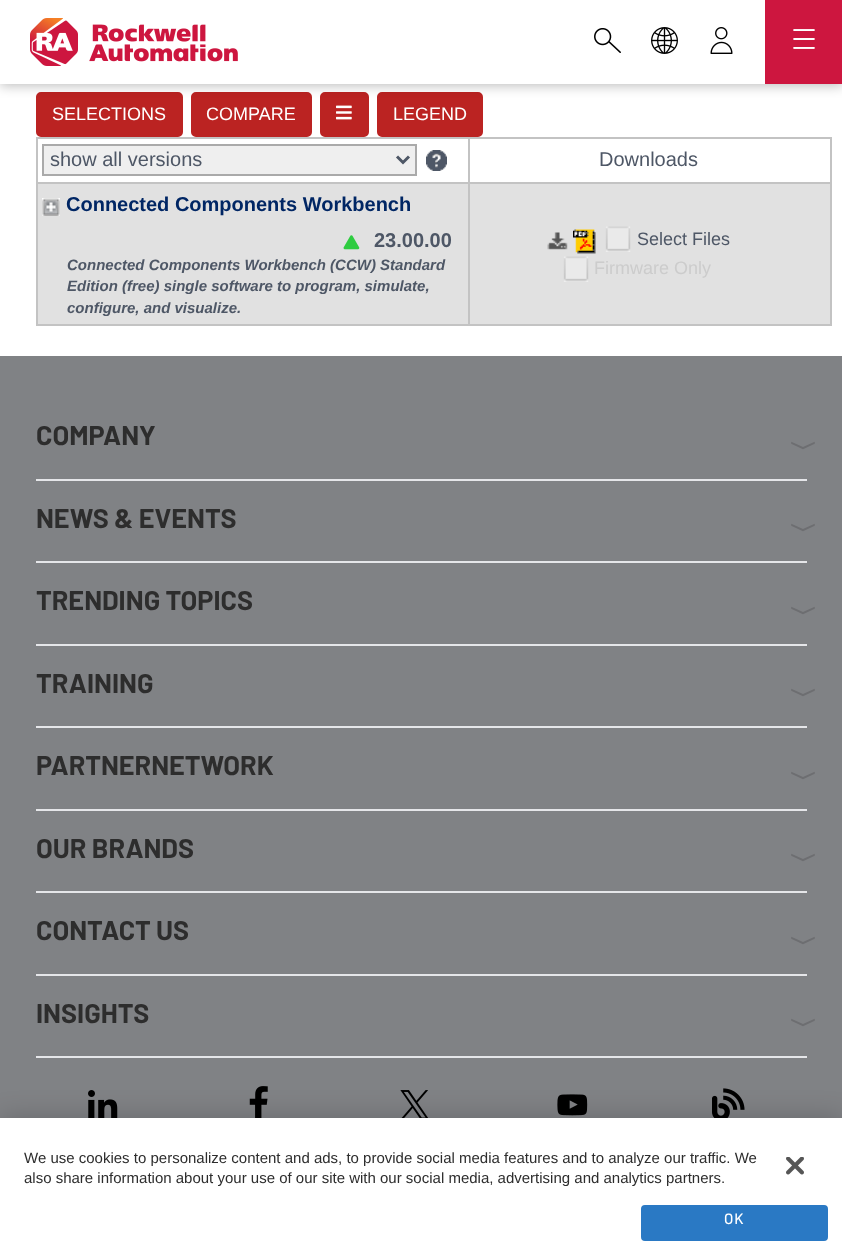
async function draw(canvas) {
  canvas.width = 842
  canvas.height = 1255
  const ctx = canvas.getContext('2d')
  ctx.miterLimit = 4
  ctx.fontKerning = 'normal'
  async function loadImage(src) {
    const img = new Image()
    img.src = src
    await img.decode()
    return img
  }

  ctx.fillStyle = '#808285'
  ctx.fillRect(0, 0, 842, 1255)
  ctx.fillStyle = '#fff'
  ctx.fillRect(0, 84, 842, 272)
  ctx.fillStyle = '#bb2322'
  ctx.beginPath()
  ctx.roundRect(37, 93, 145, 43, 4)
  ctx.fill()
  ctx.strokeStyle = '#bb2322'
  ctx.lineWidth = 2
  ctx.stroke()
  ctx.beginPath()
  ctx.roundRect(192, 93, 119, 43, 4)
  ctx.fill()
  ctx.stroke()
  ctx.beginPath()
  ctx.roundRect(321, 93, 47, 43, 4)
  ctx.fill()
  ctx.stroke()
  ctx.beginPath()
  ctx.roundRect(378, 93, 104, 43, 4)
  ctx.fill()
  ctx.stroke()
  ctx.fillStyle = '#00000040'
  ctx.filter = 'blur(6px)'
  ctx.beginPath()
  ctx.rect(0, 2, 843, 84)
  ctx.fill()
  ctx.filter = 'none'
  ctx.fillStyle = '#fff'
  ctx.fillRect(0, 0, 765, 84)
  ctx.drawImage(await loadImage('image0.png'), 30, 18, 208, 48)
  ctx.drawImage(await loadImage('image1.png'), 594, 28, 27, 25)
  ctx.drawImage(await loadImage('image2.png'), 651, 27, 27, 27)
  ctx.drawImage(await loadImage('image3.png'), 710, 27, 23, 27)
  ctx.fillStyle = '#cd163f'
  ctx.fillRect(765, 0, 77, 84)
  ctx.drawImage(await loadImage('image4.png'), 793, 29, 22, 20)
  ctx.font = '18px Liberation Sans'
  ctx.fillStyle = '#fff'
  ctx.fillText('SELECTIONS', 52, 120)
  ctx.fillText('COMPARE', 206, 120)
  ctx.drawImage(await loadImage('image5.png'), 336, 105, 16, 15)
  ctx.fillText('LEGEND', 393, 120)
  ctx.fillStyle = '#c3c3c3'
  ctx.fillRect(36, 137, 795, 2)
  ctx.fillRect(830, 137, 2, 189)
  ctx.fillRect(36, 324, 795, 2)
  ctx.fillRect(36, 137, 2, 189)
  ctx.fillStyle = '#efefef'
  ctx.beginPath()
  ctx.rect(43, 145, 373, 30)
  ctx.fill()
  ctx.strokeStyle = '#aaa'
  ctx.stroke()
  ctx.beginPath()
  ctx.moveTo(397, 156.5)
  ctx.lineTo(403, 162.5)
  ctx.lineTo(409, 156.5)
  ctx.strokeStyle = '#4e5766'
  ctx.lineWidth = 3
  ctx.stroke()
  ctx.font = '20px Liberation Sans'
  ctx.fillStyle = '#4e5766'
  ctx.fillText('show all versions', 50, 166)
  ctx.drawImage(await loadImage('image6.png'), 426, 150, 21, 21)
  ctx.fillStyle = '#c3c3c3'
  ctx.fillRect(468, 182, 363, 2)
  ctx.fillStyle = '#e1e1e1'
  ctx.fillRect(38, 184, 792, 140)
  ctx.fillStyle = '#c3c3c3'
  ctx.fillRect(468, 182, 2, 144)
  ctx.fillRect(36, 182, 434, 2)
  ctx.fillRect(468, 137, 2, 46)
  ctx.fillStyle = '#4e5766'
  ctx.fillText('Downloads', 599, 166)
  ctx.drawImage(await loadImage('image7.png'), 42, 198, 18, 18)
  ctx.font = 'bold 20px Liberation Sans'
  ctx.fillStyle = '#002664'
  ctx.fillText('Connected Components Workbench', 66, 211)
  ctx.drawImage(await loadImage('image8.png'), 343, 235, 17, 15)
  ctx.fillStyle = '#4e5766'
  ctx.fillText('23.00.00', 374, 247)
  ctx.font = 'italic bold 15px Liberation Sans'
  ctx.fillText('Connected Components Workbench (CCW) Standard', 67, 270)
  ctx.fillText('Edition (free) single software to program, simulate,', 67, 291)
  ctx.fillText('configure, and visualize.', 67, 313)
  ctx.drawImage(await loadImage('image9.png'), 547, 232, 21, 18)
  ctx.drawImage(await loadImage('image10.png'), 573, 229, 23, 25)
  ctx.drawImage(await loadImage('image11.png'), 605, 226, 26, 26)
  ctx.font = '18px Liberation Sans'
  ctx.fillText('Select Files', 637, 245)
  ctx.drawImage(await loadImage('image11.png'), 563, 256, 26, 26)
  ctx.fillStyle = '#ccc'
  ctx.fillText('Firmware Only', 594, 274)
  ctx.fillStyle = '#e5e6e9'
  ctx.fillRect(36, 479, 771, 2)
  ctx.font = 'bold 27px Barlow'
  ctx.fillStyle = '#2d2d2d'
  ctx.fillText('COMPANY', 36, 445)
  ctx.font = '27px FreeSans'
  ctx.fillStyle = '#6d6e71'
  ctx.save()
  ctx.translate(795, 441)
  ctx.rotate(90 * Math.PI / 180)
  ctx.fillText('〉', 0, 0)
  ctx.restore()
  ctx.fillStyle = '#e5e6e9'
  ctx.fillRect(36, 561, 771, 2)
  ctx.font = 'bold 27px Barlow'
  ctx.fillStyle = '#2d2d2d'
  ctx.fillText('NEWS & EVENTS', 36, 528)
  ctx.font = '27px FreeSans'
  ctx.fillStyle = '#6d6e71'
  ctx.save()
  ctx.translate(795, 523)
  ctx.rotate(90 * Math.PI / 180)
  ctx.fillText('〉', 0, 0)
  ctx.restore()
  ctx.fillStyle = '#e5e6e9'
  ctx.fillRect(36, 644, 771, 2)
  ctx.font = 'bold 27px Barlow'
  ctx.fillStyle = '#2d2d2d'
  ctx.fillText('TRENDING TOPICS', 36, 610)
  ctx.font = '27px FreeSans'
  ctx.fillStyle = '#6d6e71'
  ctx.save()
  ctx.translate(795, 606)
  ctx.rotate(90 * Math.PI / 180)
  ctx.fillText('〉', 0, 0)
  ctx.restore()
  ctx.fillStyle = '#e5e6e9'
  ctx.fillRect(36, 726, 771, 2)
  ctx.font = 'bold 27px Barlow'
  ctx.fillStyle = '#2d2d2d'
  ctx.fillText('TRAINING', 36, 693)
  ctx.font = '27px FreeSans'
  ctx.fillStyle = '#6d6e71'
  ctx.save()
  ctx.translate(795, 688)
  ctx.rotate(90 * Math.PI / 180)
  ctx.fillText('〉', 0, 0)
  ctx.restore()
  ctx.fillStyle = '#e5e6e9'
  ctx.fillRect(36, 809, 771, 2)
  ctx.font = 'bold 27px Barlow'
  ctx.fillStyle = '#2d2d2d'
  ctx.fillText('PARTNERNETWORK', 36, 775)
  ctx.font = '27px FreeSans'
  ctx.fillStyle = '#6d6e71'
  ctx.save()
  ctx.translate(795, 771)
  ctx.rotate(90 * Math.PI / 180)
  ctx.fillText('〉', 0, 0)
  ctx.restore()
  ctx.fillStyle = '#e5e6e9'
  ctx.fillRect(36, 891, 771, 2)
  ctx.font = 'bold 27px Barlow'
  ctx.fillStyle = '#2d2d2d'
  ctx.fillText('OUR BRANDS', 36, 858)
  ctx.font = '27px FreeSans'
  ctx.fillStyle = '#6d6e71'
  ctx.save()
  ctx.translate(795, 853)
  ctx.rotate(90 * Math.PI / 180)
  ctx.fillText('〉', 0, 0)
  ctx.restore()
  ctx.fillStyle = '#e5e6e9'
  ctx.fillRect(36, 974, 771, 2)
  ctx.font = 'bold 27px Barlow'
  ctx.fillStyle = '#2d2d2d'
  ctx.fillText('CONTACT US', 36, 940)
  ctx.font = '27px FreeSans'
  ctx.fillStyle = '#6d6e71'
  ctx.save()
  ctx.translate(795, 936)
  ctx.rotate(90 * Math.PI / 180)
  ctx.fillText('〉', 0, 0)
  ctx.restore()
  ctx.fillStyle = '#e5e6e9'
  ctx.fillRect(36, 1056, 771, 2)
  ctx.font = 'bold 27px Barlow'
  ctx.fillStyle = '#2d2d2d'
  ctx.fillText('INSIGHTS', 36, 1023)
  ctx.font = '27px FreeSans'
  ctx.fillStyle = '#6d6e71'
  ctx.save()
  ctx.translate(795, 1018)
  ctx.rotate(90 * Math.PI / 180)
  ctx.fillText('〉', 0, 0)
  ctx.restore()
  ctx.drawImage(await loadImage('image12.png'), 88, 1090, 30, 28)
  ctx.drawImage(await loadImage('image13.png'), 249, 1086, 19, 32)
  ctx.drawImage(await loadImage('image14.png'), 400, 1090, 28, 28)
  ctx.drawImage(await loadImage('image15.png'), 557, 1094, 31, 22)
  ctx.drawImage(await loadImage('image16.png'), 712, 1088, 33, 30)
  ctx.fillStyle = '#00000033'
  ctx.filter = 'blur(13.5px)'
  ctx.beginPath()
  ctx.rect(0, 1118, 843, 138)
  ctx.fill()
  ctx.filter = 'none'
  ctx.fillStyle = '#fff'
  ctx.fillRect(0, 1118, 842, 137)
  ctx.font = '15px Liberation Sans'
  ctx.fillStyle = '#2d2d2d'
  ctx.fillText('We use cookies to personalize content and ads, to provide social media features and to analyze our traffic. We', 24, 1163)
  ctx.fillText('also share information about your use of our site with our social media, advertising and analytics partners.', 24, 1183)
  ctx.fillStyle = '#2a79c4'
  ctx.beginPath()
  ctx.roundRect(642, 1206, 185, 34, 3)
  ctx.fill()
  ctx.strokeStyle = '#2a79c4'
  ctx.lineWidth = 2
  ctx.stroke()
  ctx.letterSpacing = '1px'
  ctx.font = '500 15px Barlow'
  ctx.fillStyle = '#fff'
  ctx.fillText('OK', 724, 1224)
  ctx.drawImage(await loadImage('image17.png'), 786, 1157, 18, 18)
}

draw(document.querySelector('canvas'))
